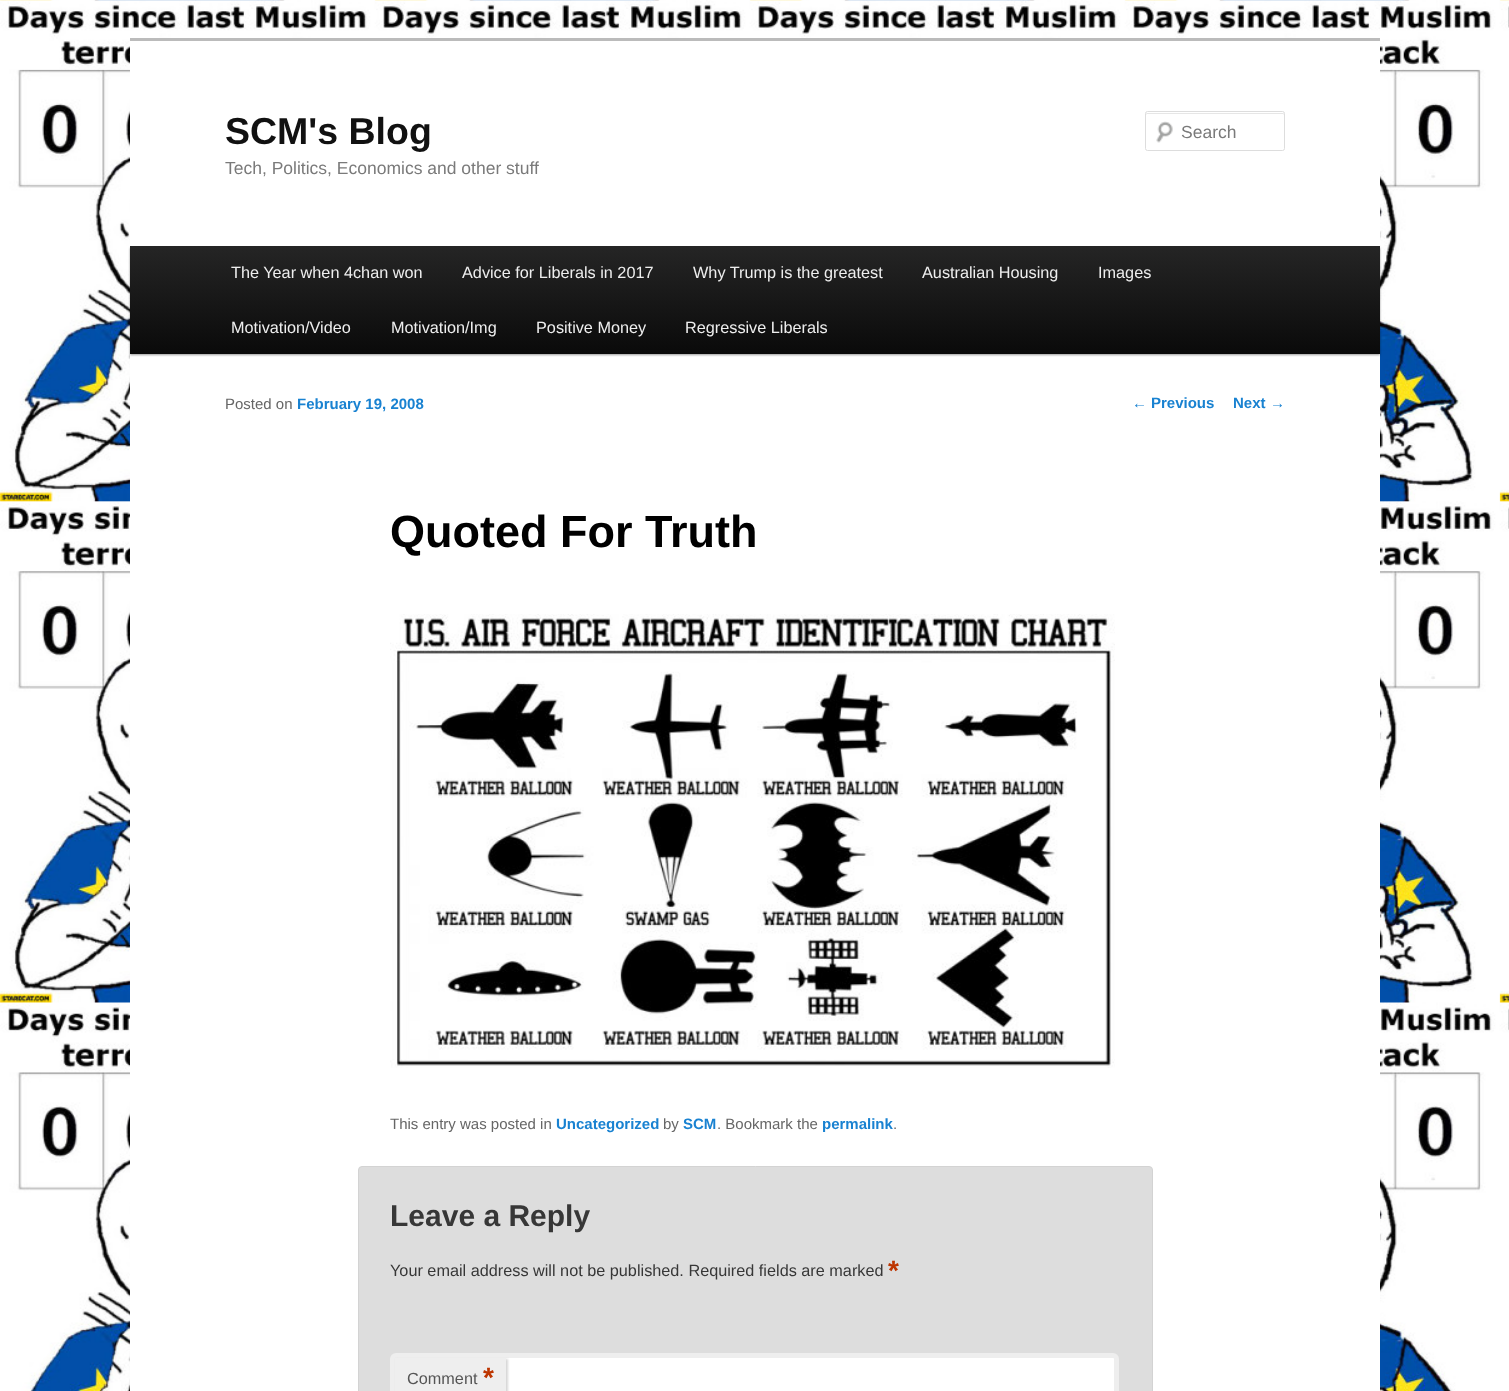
async function draw(canvas) {
  canvas.width = 1509
  canvas.height = 1391
  const ctx = canvas.getContext('2d')
  ctx.miterLimit = 4
  ctx.fontKerning = 'normal'
  async function loadImage(src) {
    const img = new Image()
    img.src = src
    await img.decode()
    return img
  }
  let gradient

  ctx.fillStyle = '#fff'
  ctx.fillRect(0, 0, 1509, 1391)
  ctx.drawImage(await loadImage('image0.png'), 0, 0, 1509, 1391)
  ctx.fillRect(130, 41, 1250, 1350)
  ctx.fillStyle = '#bbb'
  ctx.fillRect(130, 38, 1250, 3)
  ctx.font = 'bold 37.5px Liberation Sans'
  ctx.fillStyle = '#111'
  ctx.fillText('SCM\'s Blog', 225, 144)
  ctx.font = '17.5px Liberation Sans'
  ctx.fillStyle = '#7a7a7a'
  ctx.fillText('Tech, Politics, Economics and other stuff', 225, 174)
  ctx.drawImage(await loadImage('image1.png'), 1156, 121, 17, 22)
  ctx.fillStyle = '#e6e6e6'
  ctx.beginPath()
  ctx.moveTo(1148, 114)
  ctx.lineTo(1282, 114)
  ctx.bezierCurveTo(1283, 114, 1284, 114, 1284, 115)
  ctx.bezierCurveTo(1284, 114, 1284, 113, 1283, 113)
  ctx.lineTo(1147, 113)
  ctx.bezierCurveTo(1146, 113, 1146, 114, 1146, 115)
  ctx.bezierCurveTo(1146, 114, 1147, 114, 1148, 114)
  ctx.closePath()
  ctx.fill()
  ctx.beginPath()
  ctx.roundRect(1145.5, 111.5, 139, 39, 2)
  ctx.strokeStyle = '#ddd'
  ctx.stroke()
  ctx.fillStyle = '#7a7a7a'
  ctx.fillText('Search', 1181, 138)
  ctx.fillStyle = '#00000066'
  ctx.filter = 'blur(1px)'
  ctx.beginPath()
  ctx.rect(130, 248, 1250, 107)
  ctx.fill()
  ctx.filter = 'none'
  gradient = ctx.createLinearGradient(755, 246, 755, 354)
  gradient.addColorStop(0, '#252525')
  gradient.addColorStop(1, '#0a0a0a')
  ctx.fillStyle = gradient
  ctx.fillRect(130, 246, 1250, 108)
  ctx.font = '16.25px Liberation Sans'
  ctx.fillStyle = '#eee'
  ctx.fillText('The Year when 4chan won', 231, 278)
  ctx.fillText('Advice for Liberals in 2017', 462, 278)
  ctx.fillText('Why Trump is the greatest', 693, 278)
  ctx.fillText('Australian Housing', 922, 278)
  ctx.fillText('Images', 1098, 278)
  ctx.fillText('Motivation/Video', 231, 333)
  ctx.fillText('Motivation/Img', 391, 333)
  ctx.fillText('Positive Money', 536, 333)
  ctx.fillText('Regressive Liberals', 685, 333)
  ctx.font = '15px Liberation Sans'
  ctx.fillStyle = '#666'
  ctx.fillText('Posted on', 225, 409)
  ctx.font = 'bold 15px Liberation Sans'
  ctx.fillStyle = '#1982d1'
  ctx.fillText('February 19, 2008', 297, 409)
  ctx.font = 'bold 45px Liberation Sans'
  ctx.fillStyle = '#000'
  ctx.fillText('Quoted For Truth', 390, 547)
  ctx.drawImage(await loadImage('image2.png'), 390, 614, 725, 454)
  ctx.font = '15px Liberation Sans'
  ctx.fillStyle = '#666'
  ctx.fillText('This entry was posted in', 390, 1129)
  ctx.font = 'bold 15px Liberation Sans'
  ctx.fillStyle = '#1982d1'
  ctx.fillText('Uncategorized', 556, 1129)
  ctx.font = '15px Liberation Sans'
  ctx.fillStyle = '#666'
  ctx.fillText('by', 663, 1129)
  ctx.font = 'bold 15px Liberation Sans'
  ctx.fillStyle = '#1982d1'
  ctx.fillText('SCM', 683, 1129)
  ctx.font = '15px Liberation Sans'
  ctx.fillStyle = '#666'
  ctx.fillText('. Bookmark the', 717, 1129)
  ctx.font = 'bold 15px Liberation Sans'
  ctx.fillStyle = '#1982d1'
  ctx.fillText('permalink', 822, 1129)
  ctx.font = '15px Liberation Sans'
  ctx.fillStyle = '#666'
  ctx.fillText('.', 893, 1129)
  ctx.fillStyle = '#1982d1'
  ctx.fillText('←', 1132, 408)
  ctx.font = 'bold 15px Liberation Sans'
  ctx.fillText('Previous', 1151, 408)
  ctx.fillText('Next', 1233, 408)
  ctx.font = '15px Liberation Sans'
  ctx.fillText('→', 1270, 408)
  ctx.fillStyle = '#ddd'
  ctx.beginPath()
  ctx.roundRect(358.5, 1166.5, 794, 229, 3.5)
  ctx.fill()
  ctx.strokeStyle = '#d3d3d3'
  ctx.stroke()
  ctx.font = 'bold 30px Liberation Sans'
  ctx.fillStyle = '#373737'
  ctx.fillText('Leave a Reply', 390, 1226)
  ctx.font = '16.25px Liberation Sans'
  ctx.fillText('Your email address will not be published. Required fields are marked', 390, 1276)
  ctx.font = 'bold 28px Liberation Sans'
  ctx.fillStyle = '#bd3500'
  ctx.fillText('*', 888, 1280)
  ctx.fillStyle = '#fff'
  ctx.beginPath()
  ctx.roundRect(392.5, 1355.5, 724, 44, 3.5)
  ctx.fill()
  ctx.strokeStyle = '#eee'
  ctx.lineWidth = 5
  ctx.stroke()
  ctx.fillStyle = '#cccccccc'
  ctx.filter = 'blur(1px)'
  ctx.beginPath()
  ctx.rect(396, 1359, 112, 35)
  ctx.fill()
  ctx.filter = 'none'
  ctx.fillStyle = '#eee'
  ctx.fillRect(395, 1358, 111, 33)
  ctx.font = '16.25px Liberation Sans'
  ctx.fillStyle = '#555'
  ctx.fillText('Comment', 407, 1384)
  ctx.font = 'bold 28px Liberation Sans'
  ctx.fillStyle = '#bd3500'
  ctx.fillText('*', 483, 1387)
}

draw(document.querySelector('canvas'))
